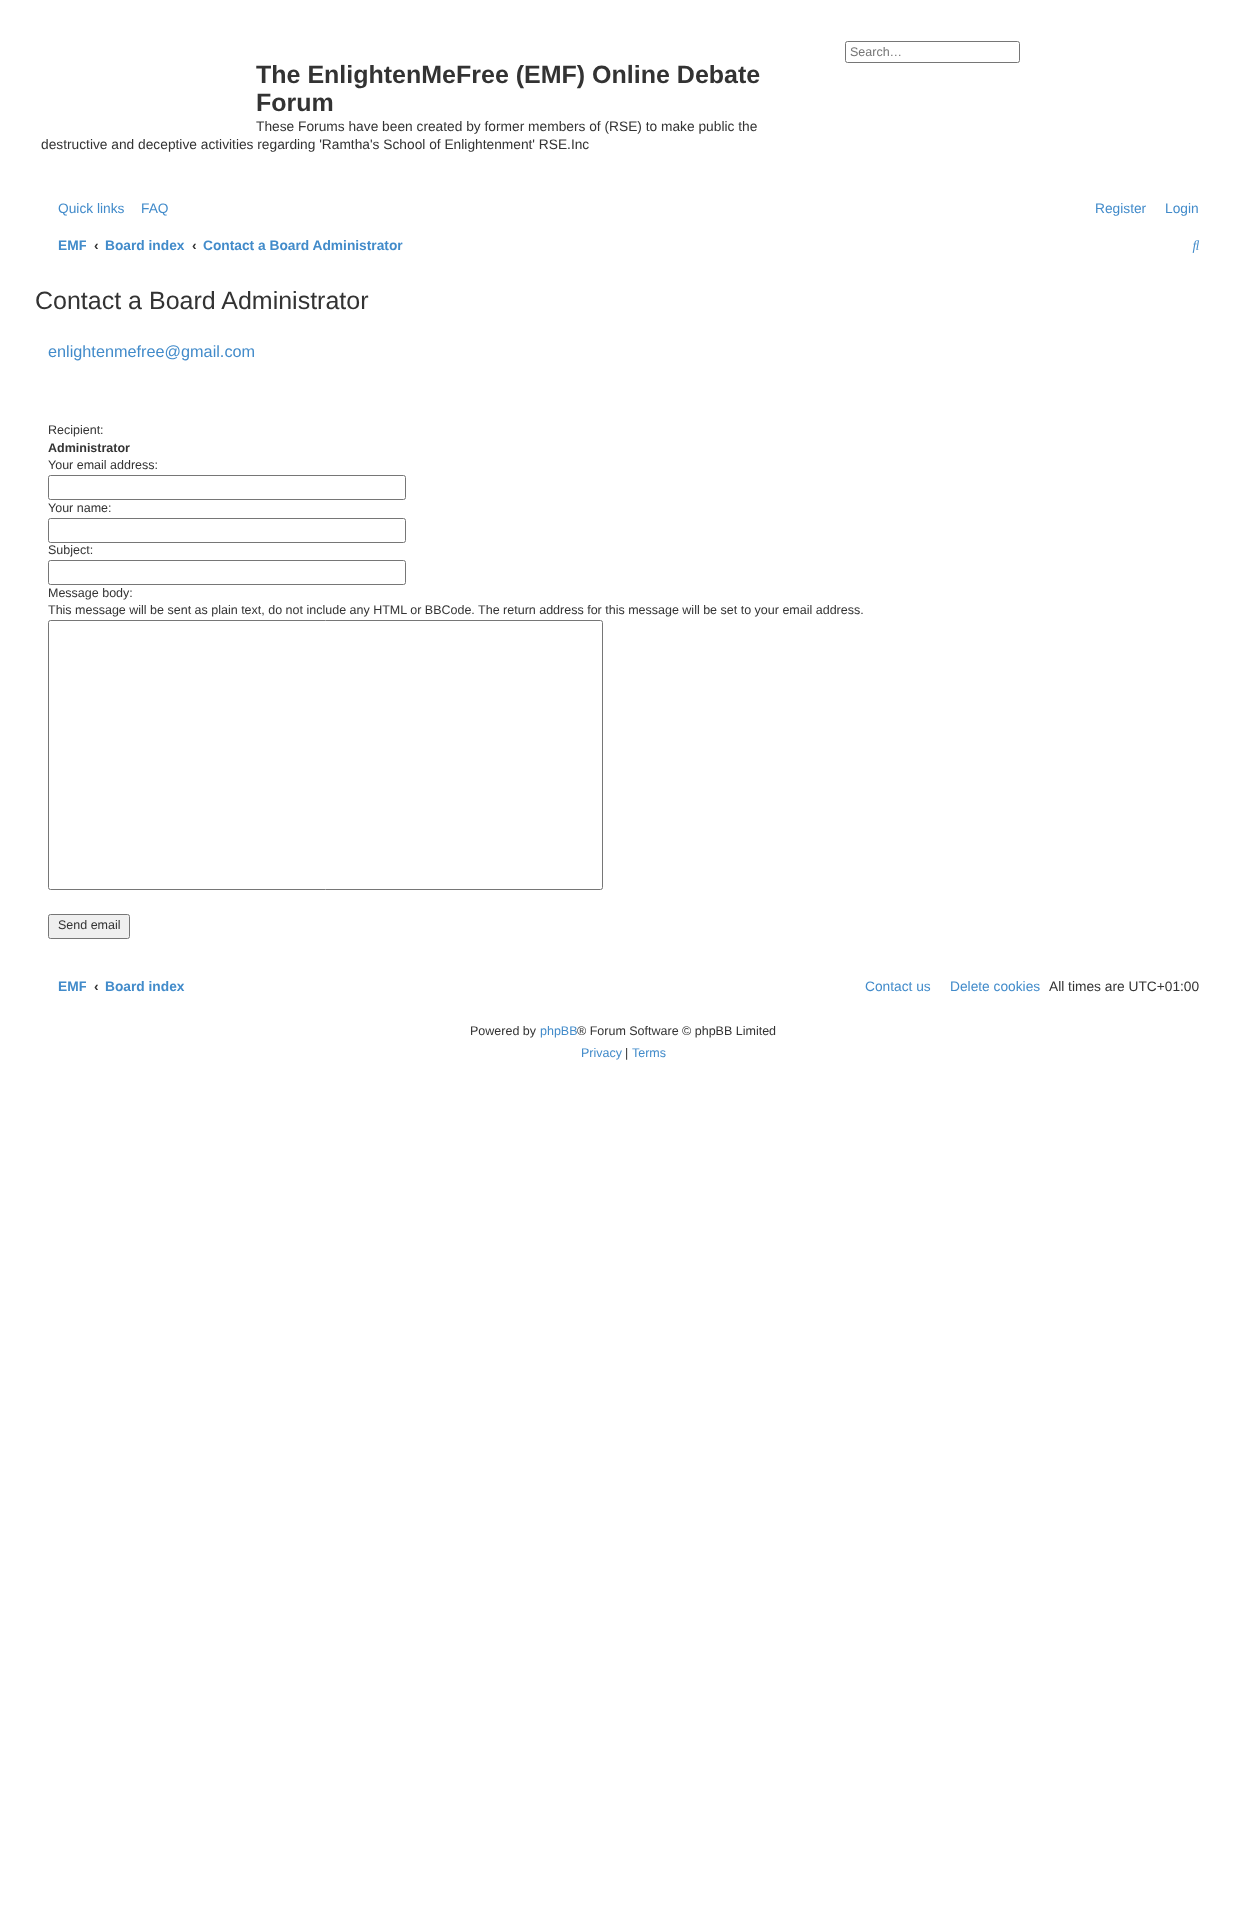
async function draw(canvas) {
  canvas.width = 1246
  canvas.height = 1917
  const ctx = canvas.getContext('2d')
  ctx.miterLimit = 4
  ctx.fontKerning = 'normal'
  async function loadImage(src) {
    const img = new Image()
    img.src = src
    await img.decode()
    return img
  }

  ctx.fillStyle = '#fff'
  ctx.fillRect(0, 0, 1246, 1917)
  ctx.beginPath()
  ctx.roundRect(845.5, 41.5, 174, 21, 2)
  ctx.strokeStyle = '#767676'
  ctx.stroke()
  ctx.font = '12.5px Liberation Sans'
  ctx.fillStyle = '#757575'
  ctx.fillText('Search…', 850, 56)
  ctx.font = 'bold 25px Liberation Sans'
  ctx.fillStyle = '#333'
  ctx.fillText('The EnlightenMeFree (EMF) Online Debate', 256, 83)
  ctx.fillText('Forum', 256, 111)
  ctx.font = '13.75px Liberation Sans'
  ctx.fillText('These Forums have been created by former members of (RSE) to make public the', 256, 131)
  ctx.fillText('destructive and deceptive activities regarding \'Ramtha\'s School of Enlightenment\' RSE.Inc', 41, 149)
  ctx.fillStyle = '#428bca'
  ctx.fillText('Quick links', 58, 213)
  ctx.fillText('FAQ', 141, 213)
  ctx.fillText('Register', 1095, 213)
  ctx.fillText('Login', 1165, 213)
  ctx.save()
  ctx.beginPath()
  ctx.rect(48, 230, 38, 31)
  ctx.clip()
  ctx.font = 'bold 13.75px Liberation Sans'
  ctx.fillText('EMF', 58, 250)
  ctx.restore()
  ctx.font = 'bold 13.75px Liberation Sans'
  ctx.fillStyle = '#333'
  ctx.fillText('‹', 94, 250)
  ctx.fillStyle = '#428bca'
  ctx.fillText('Board index', 105, 250)
  ctx.fillStyle = '#333'
  ctx.fillText('‹', 192, 250)
  ctx.fillStyle = '#428bca'
  ctx.fillText('Contact a Board Administrator', 203, 250)
  ctx.drawImage(await loadImage('image0.png'), 1192, 240, 8, 13)
  ctx.font = '25px Liberation Sans'
  ctx.fillStyle = '#333'
  ctx.fillText('Contact a Board Administrator', 35, 309)
  ctx.font = '16.25px Liberation Sans'
  ctx.fillStyle = '#428bca'
  ctx.fillText('enlightenmefree@gmail.com', 48, 357)
  ctx.font = '12.5px Liberation Sans'
  ctx.fillStyle = '#333'
  ctx.fillText('Recipient:', 48, 434)
  ctx.font = 'bold 12.5px Liberation Sans'
  ctx.fillText('Administrator', 48, 452)
  ctx.font = '12.5px Liberation Sans'
  ctx.fillText('Your email address:', 48, 469)
  ctx.beginPath()
  ctx.roundRect(48.5, 475.5, 357, 24, 2)
  ctx.stroke()
  ctx.fillText('Your name:', 48, 512)
  ctx.beginPath()
  ctx.roundRect(48.5, 518.5, 357, 24, 2)
  ctx.stroke()
  ctx.fillText('Subject:', 48, 554)
  ctx.beginPath()
  ctx.roundRect(48.5, 560.5, 357, 24, 2)
  ctx.stroke()
  ctx.fillText('Message body:', 48, 597)
  ctx.fillText('This message will be sent as plain text, do not include any HTML or BBCode. The return address for this message will be set to your email address.', 48, 614)
  ctx.beginPath()
  ctx.roundRect(48.5, 620.5, 554, 269, 2)
  ctx.stroke()
  ctx.fillStyle = '#efefef'
  ctx.beginPath()
  ctx.roundRect(48.5, 914.5, 81, 24, 2)
  ctx.fill()
  ctx.stroke()
  ctx.fillStyle = '#333'
  ctx.fillText('Send email', 58, 929)
  ctx.save()
  ctx.beginPath()
  ctx.rect(48, 971, 38, 30)
  ctx.clip()
  ctx.font = 'bold 13.75px Liberation Sans'
  ctx.fillStyle = '#428bca'
  ctx.fillText('EMF', 58, 991)
  ctx.restore()
  ctx.font = 'bold 13.75px Liberation Sans'
  ctx.fillText('‹', 94, 991)
  ctx.fillStyle = '#428bca'
  ctx.fillText('Board index', 105, 991)
  ctx.font = '13.75px Liberation Sans'
  ctx.fillText('Contact us', 865, 991)
  ctx.fillText('Delete cookies', 950, 991)
  ctx.fillStyle = '#333'
  ctx.fillText('All times are UTC+01:00', 1049, 991)
  ctx.font = '12.5px Liberation Sans'
  ctx.fillText('Powered by', 470, 1035)
  ctx.fillStyle = '#428bca'
  ctx.fillText('phpBB', 540, 1035)
  ctx.fillStyle = '#333'
  ctx.fillText('® Forum Software © phpBB Limited', 577, 1035)
  ctx.fillStyle = '#428bca'
  ctx.fillText('Privacy', 581, 1057)
  ctx.fillStyle = '#333'
  ctx.fillText('|', 625, 1057)
  ctx.fillStyle = '#428bca'
  ctx.fillText('Terms', 632, 1057)
}

draw(document.querySelector('canvas'))
